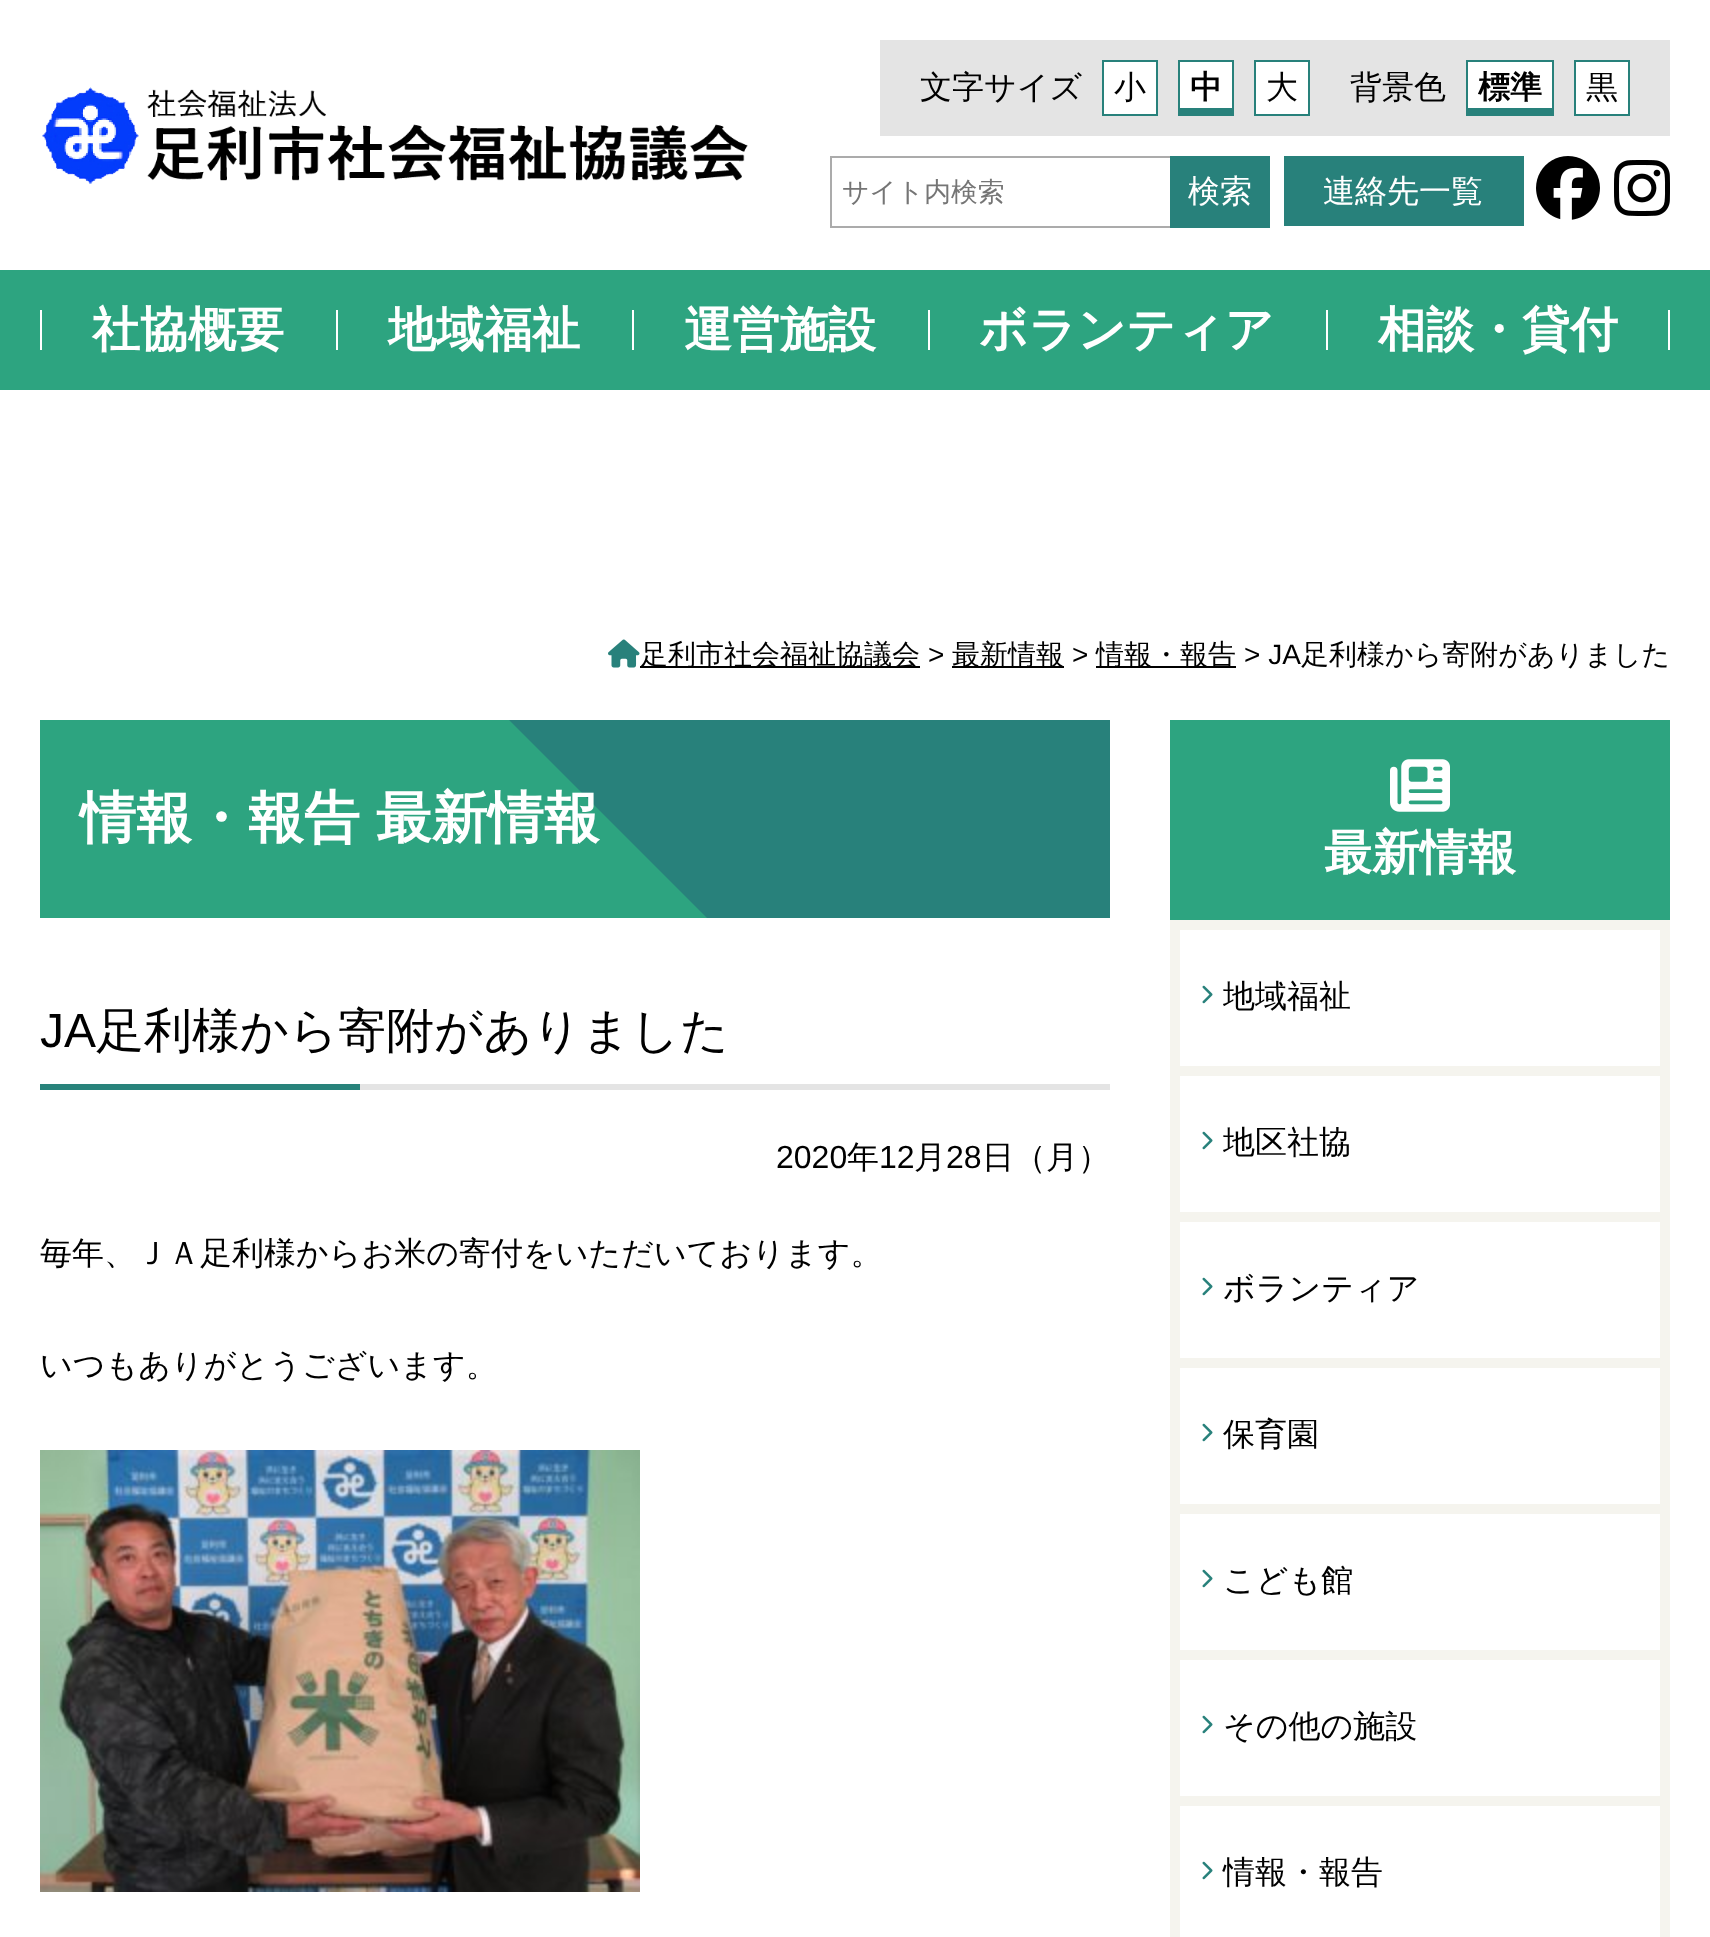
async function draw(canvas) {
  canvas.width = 1710
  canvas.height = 1937
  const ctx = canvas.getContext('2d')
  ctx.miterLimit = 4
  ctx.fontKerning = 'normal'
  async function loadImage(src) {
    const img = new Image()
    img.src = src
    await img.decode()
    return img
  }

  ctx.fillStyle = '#fff'
  ctx.fillRect(0, 0, 1710, 1937)
  ctx.drawImage(await loadImage('image0.png'), 42, 87, 706, 97)
  ctx.fillStyle = '#e4e4e4'
  ctx.fillRect(880, 40, 790, 96)
  ctx.font = '500 32px WenQuanYi Zen Hei'
  ctx.fillStyle = '#000'
  ctx.fillText('文字サイズ', 920, 98)
  ctx.fillStyle = '#fff'
  ctx.beginPath()
  ctx.rect(1103, 61, 54, 54)
  ctx.fill()
  ctx.strokeStyle = '#28817b'
  ctx.lineWidth = 2
  ctx.stroke()
  ctx.fillStyle = '#000'
  ctx.fillText('小', 1114, 98)
  ctx.fillStyle = '#fff'
  ctx.fillRect(1180, 62, 52, 46)
  ctx.fillStyle = '#28817b'
  ctx.fillRect(1178, 60, 56, 2)
  ctx.fillRect(1232, 60, 2, 56)
  ctx.fillRect(1178, 108, 56, 8)
  ctx.fillRect(1178, 60, 2, 56)
  ctx.font = 'bold 32px WenQuanYi Zen Hei'
  ctx.fillStyle = '#000'
  ctx.fillText('中', 1190, 98)
  ctx.fillStyle = '#fff'
  ctx.beginPath()
  ctx.rect(1255, 61, 54, 54)
  ctx.fill()
  ctx.stroke()
  ctx.font = '500 32px WenQuanYi Zen Hei'
  ctx.fillStyle = '#000'
  ctx.fillText('大', 1266, 98)
  ctx.fillText('背景色', 1350, 98)
  ctx.fillStyle = '#fff'
  ctx.fillRect(1468, 62, 84, 46)
  ctx.fillStyle = '#28817b'
  ctx.fillRect(1466, 60, 88, 2)
  ctx.fillRect(1552, 60, 2, 56)
  ctx.fillRect(1466, 108, 88, 8)
  ctx.fillRect(1466, 60, 2, 56)
  ctx.font = 'bold 32px WenQuanYi Zen Hei'
  ctx.fillStyle = '#000'
  ctx.fillText('標準', 1478, 98)
  ctx.fillStyle = '#fff'
  ctx.beginPath()
  ctx.rect(1575, 61, 54, 54)
  ctx.fill()
  ctx.stroke()
  ctx.font = '500 32px WenQuanYi Zen Hei'
  ctx.fillStyle = '#000'
  ctx.fillText('黒', 1586, 98)
  ctx.fillStyle = '#ababab'
  ctx.fillRect(830, 156, 340, 2)
  ctx.fillRect(830, 226, 340, 2)
  ctx.fillRect(830, 156, 2, 72)
  ctx.font = '500 26.75px WenQuanYi Zen Hei'
  ctx.fillStyle = '#757575'
  ctx.fillText('サイト内検索', 842, 201)
  ctx.fillStyle = '#28817b'
  ctx.fillRect(1170, 156, 100, 72)
  ctx.font = '500 32px WenQuanYi Zen Hei'
  ctx.fillStyle = '#fff'
  ctx.fillText('検索', 1188, 202)
  ctx.fillStyle = '#28817b'
  ctx.fillRect(1284, 156, 240, 70)
  ctx.fillStyle = '#fff'
  ctx.fillText('連絡先一覧', 1323, 202)
  ctx.drawImage(await loadImage('image1.png'), 1536, 156, 64, 64)
  ctx.drawImage(await loadImage('image2.png'), 1614, 160, 56, 56)
  ctx.fillStyle = '#2da480'
  ctx.fillRect(0, 270, 1710, 120)
  ctx.fillStyle = '#fff'
  ctx.fillRect(40, 310, 2, 40)
  ctx.font = 'bold 48px WenQuanYi Zen Hei'
  ctx.fillText('社協概要', 92, 346)
  ctx.fillRect(336, 310, 2, 40)
  ctx.fillText('地域福祉', 388, 346)
  ctx.fillRect(632, 310, 2, 40)
  ctx.fillText('運営施設', 684, 346)
  ctx.fillRect(928, 310, 2, 40)
  ctx.fillText('ボランティア', 979, 346)
  ctx.fillRect(1326, 310, 2, 40)
  ctx.fillText('相談・貸付', 1378, 346)
  ctx.fillRect(1668, 310, 2, 40)
  ctx.drawImage(await loadImage('image3.png'), 608, 639, 32, 29)
  ctx.fillStyle = '#000'
  ctx.fillRect(640, 666, 280, 2)
  ctx.font = '500 28px WenQuanYi Zen Hei'
  ctx.fillText('足利市社会福祉協議会', 640, 664)
  ctx.font = '28px Liberation Sans'
  ctx.fillText('>', 928, 664)
  ctx.fillRect(952, 666, 112, 2)
  ctx.font = '500 28px WenQuanYi Zen Hei'
  ctx.fillText('最新情報', 952, 664)
  ctx.font = '28px Liberation Sans'
  ctx.fillText('>', 1072, 664)
  ctx.fillRect(1096, 666, 140, 2)
  ctx.font = '500 28px WenQuanYi Zen Hei'
  ctx.fillText('情報・報告', 1096, 664)
  ctx.font = '28px Liberation Sans'
  ctx.fillText('> JA', 1244, 664)
  ctx.font = '500 28px WenQuanYi Zen Hei'
  ctx.fillText('足利様から寄附がありました', 1301, 664)
  ctx.fillStyle = '#2da480'
  ctx.fillRect(40, 720, 667, 198)
  ctx.save()
  ctx.beginPath()
  ctx.rect(40, 720, 1070, 198)
  ctx.clip()
  ctx.fillStyle = '#28817b'
  ctx.beginPath()
  ctx.moveTo(486, 697)
  ctx.lineTo(910, 273)
  ctx.lineTo(1334, 697)
  ctx.lineTo(910, 1121)
  ctx.closePath()
  ctx.fill()
  ctx.restore()
  ctx.wordSpacing = '-1px'
  ctx.font = 'bold 56px WenQuanYi Zen Hei'
  ctx.fillStyle = '#fff'
  ctx.fillText('情報・報告 最新情報', 80, 837)
  ctx.fillStyle = '#e4e4e4'
  ctx.fillRect(360, 1084, 750, 6)
  ctx.wordSpacing = '0px'
  ctx.font = '48px Liberation Sans'
  ctx.fillStyle = '#000'
  ctx.fillText('JA', 40, 1047)
  ctx.font = '500 48px WenQuanYi Zen Hei'
  ctx.fillText('足利様から寄附がありました', 96, 1047)
  ctx.fillStyle = '#28837b'
  ctx.fillRect(40, 1084, 320, 6)
  ctx.font = '32px Liberation Sans'
  ctx.fillStyle = '#000'
  ctx.fillText('2020', 776, 1168)
  ctx.font = '500 32px WenQuanYi Zen Hei'
  ctx.fillText('年', 847, 1168)
  ctx.font = '32px Liberation Sans'
  ctx.fillText('12', 879, 1168)
  ctx.font = '500 32px WenQuanYi Zen Hei'
  ctx.fillText('月', 914, 1168)
  ctx.font = '32px Liberation Sans'
  ctx.fillText('28', 946, 1168)
  ctx.font = '500 32px WenQuanYi Zen Hei'
  ctx.fillText('日（月）', 982, 1168)
  ctx.fillText('毎年、ＪＡ足利様からお米の寄付をいただいております。', 40, 1264)
  ctx.fillText('いつもありがとうございます。', 40, 1376)
  ctx.drawImage(await loadImage('image4.png'), 40, 1450, 600, 442)
  ctx.fillStyle = '#2da480'
  ctx.fillRect(1170, 720, 500, 200)
  ctx.drawImage(await loadImage('image5.png'), 1390, 759, 60, 53)
  ctx.font = 'bold 48px WenQuanYi Zen Hei'
  ctx.fillStyle = '#fff'
  ctx.fillText('最新情報', 1324, 869)
  ctx.fillStyle = '#f5f4ee'
  ctx.fillRect(1170, 920, 500, 1017)
  ctx.fillStyle = '#fff'
  ctx.fillRect(1180, 930, 480, 136)
  ctx.drawImage(await loadImage('image6.png'), 1202, 985, 11, 19)
  ctx.font = '500 32px WenQuanYi Zen Hei'
  ctx.fillStyle = '#000'
  ctx.fillText('地域福祉', 1223, 1007)
  ctx.fillStyle = '#fff'
  ctx.fillRect(1180, 1076, 480, 136)
  ctx.drawImage(await loadImage('image6.png'), 1202, 1131, 11, 19)
  ctx.fillStyle = '#000'
  ctx.fillText('地区社協', 1223, 1153)
  ctx.fillStyle = '#fff'
  ctx.fillRect(1180, 1222, 480, 136)
  ctx.drawImage(await loadImage('image6.png'), 1202, 1277, 11, 19)
  ctx.fillStyle = '#000'
  ctx.fillText('ボランティア', 1223, 1299)
  ctx.fillStyle = '#fff'
  ctx.fillRect(1180, 1368, 480, 136)
  ctx.drawImage(await loadImage('image6.png'), 1202, 1423, 11, 19)
  ctx.fillStyle = '#000'
  ctx.fillText('保育園', 1223, 1445)
  ctx.fillStyle = '#fff'
  ctx.fillRect(1180, 1514, 480, 136)
  ctx.drawImage(await loadImage('image6.png'), 1202, 1569, 11, 19)
  ctx.fillStyle = '#000'
  ctx.fillText('こども館', 1223, 1591)
  ctx.fillStyle = '#fff'
  ctx.fillRect(1180, 1660, 480, 136)
  ctx.drawImage(await loadImage('image6.png'), 1202, 1715, 11, 19)
  ctx.fillStyle = '#000'
  ctx.fillText('その他の施設', 1223, 1737)
  ctx.fillStyle = '#fff'
  ctx.fillRect(1180, 1806, 480, 131)
  ctx.drawImage(await loadImage('image6.png'), 1202, 1861, 11, 19)
  ctx.fillStyle = '#000'
  ctx.fillText('情報・報告', 1223, 1883)
}

draw(document.querySelector('canvas'))
